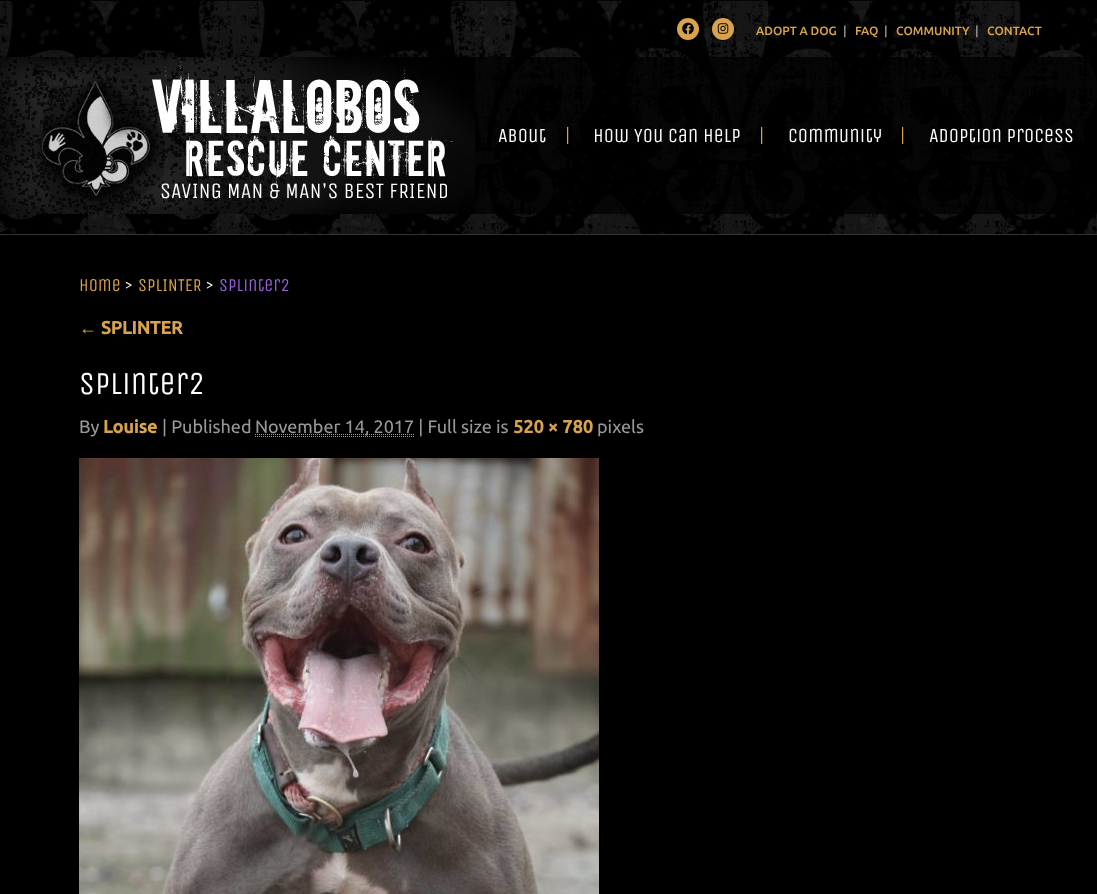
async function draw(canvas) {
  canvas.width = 1097
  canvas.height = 894
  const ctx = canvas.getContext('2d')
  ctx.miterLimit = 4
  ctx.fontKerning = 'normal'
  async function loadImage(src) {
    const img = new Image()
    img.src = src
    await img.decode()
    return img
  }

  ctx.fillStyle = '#000'
  ctx.fillRect(0, 0, 1097, 894)
  ctx.drawImage(await loadImage('image0.png'), 0, 0, 1097, 234)
  ctx.fillStyle = '#333'
  ctx.fillRect(0, 234, 1097, 1)
  ctx.fillStyle = '#d8a34c'
  ctx.beginPath()
  ctx.arc(688, 29, 11, 0, 2 * Math.PI)
  ctx.fill()
  ctx.drawImage(await loadImage('image1.png'), 682, 22, 12, 13)
  ctx.beginPath()
  ctx.arc(723, 29, 11, 0, 2 * Math.PI)
  ctx.fill()
  ctx.drawImage(await loadImage('image2.png'), 717, 23, 12, 11)
  ctx.font = '500 12px Ubuntu'
  ctx.fillText('ADOPT A DOG', 756, 35)
  ctx.fillStyle = '#999'
  ctx.fillText('|', 843, 35)
  ctx.fillStyle = '#d8a34c'
  ctx.fillText('FAQ', 855, 35)
  ctx.fillStyle = '#999'
  ctx.fillText('|', 884, 35)
  ctx.fillStyle = '#d8a34c'
  ctx.fillText('COMMUNITY', 896, 35)
  ctx.fillStyle = '#999'
  ctx.fillText('|', 975, 35)
  ctx.fillStyle = '#d8a34c'
  ctx.fillText('CONTACT', 987, 35)
  ctx.fillStyle = '#000000b3'
  ctx.fillRect(475, 57, 622, 157)
  ctx.drawImage(await loadImage('image3.png'), 0, 57, 475, 157)
  ctx.font = '20px Unica One'
  ctx.fillStyle = '#fff'
  ctx.fillText('About', 498, 142)
  ctx.fillStyle = '#d8a34c'
  ctx.fillText('|', 565, 142)
  ctx.fillStyle = '#fff'
  ctx.fillText('How You Can Help', 593, 142)
  ctx.fillStyle = '#d8a34c'
  ctx.fillText('|', 759, 142)
  ctx.fillStyle = '#fff'
  ctx.fillText('Community', 788, 142)
  ctx.fillStyle = '#d8a34c'
  ctx.fillText('|', 900, 142)
  ctx.fillStyle = '#fff'
  ctx.fillText('Adoption Process', 929, 142)
  ctx.font = '18px Unica One'
  ctx.fillStyle = '#d8a34c'
  ctx.fillText('Home', 79, 291)
  ctx.fillStyle = '#fff'
  ctx.fillText('>', 124, 291)
  ctx.fillStyle = '#d8a34c'
  ctx.fillText('SPLINTER', 138, 291)
  ctx.fillStyle = '#fff'
  ctx.fillText('>', 205, 291)
  ctx.fillStyle = '#9663d8'
  ctx.fillText('splinter2', 219, 291)
  ctx.font = 'bold 18px Liberation Sans'
  ctx.fillStyle = '#d8a34c'
  ctx.fillText('←', 79, 334)
  ctx.font = 'bold 18px Ubuntu'
  ctx.fillText('SPLINTER', 101, 334)
  ctx.font = '32px Unica One'
  ctx.fillStyle = '#fff'
  ctx.fillText('splinter2', 79, 394)
  ctx.font = '18px Ubuntu'
  ctx.fillStyle = '#999'
  ctx.fillText('By', 79, 433)
  ctx.font = 'bold 18px Ubuntu'
  ctx.fillStyle = '#d8a34c'
  ctx.fillText('Louise', 103, 433)
  ctx.font = '18px Ubuntu'
  ctx.fillStyle = '#999'
  ctx.fillText('| Published', 162, 433)
  ctx.beginPath()
  ctx.moveTo(255, 436.5)
  ctx.lineTo(414, 436.5)
  ctx.strokeStyle = '#999'
  ctx.setLineDash([1, 1])
  ctx.stroke()
  ctx.beginPath()
  ctx.moveTo(255, 434.5)
  ctx.lineTo(414.5, 434.5)
  ctx.stroke()
  ctx.fillText('November 14, 2017 | Full size is', 255, 433)
  ctx.font = 'bold 18px Ubuntu'
  ctx.fillStyle = '#d8a34c'
  ctx.fillText('520 × 780', 513, 433)
  ctx.font = '18px Ubuntu'
  ctx.fillStyle = '#999'
  ctx.fillText('pixels', 597, 433)
  ctx.drawImage(await loadImage('image4.png'), 79, 458, 520, 436)
}

draw(document.querySelector('canvas'))
